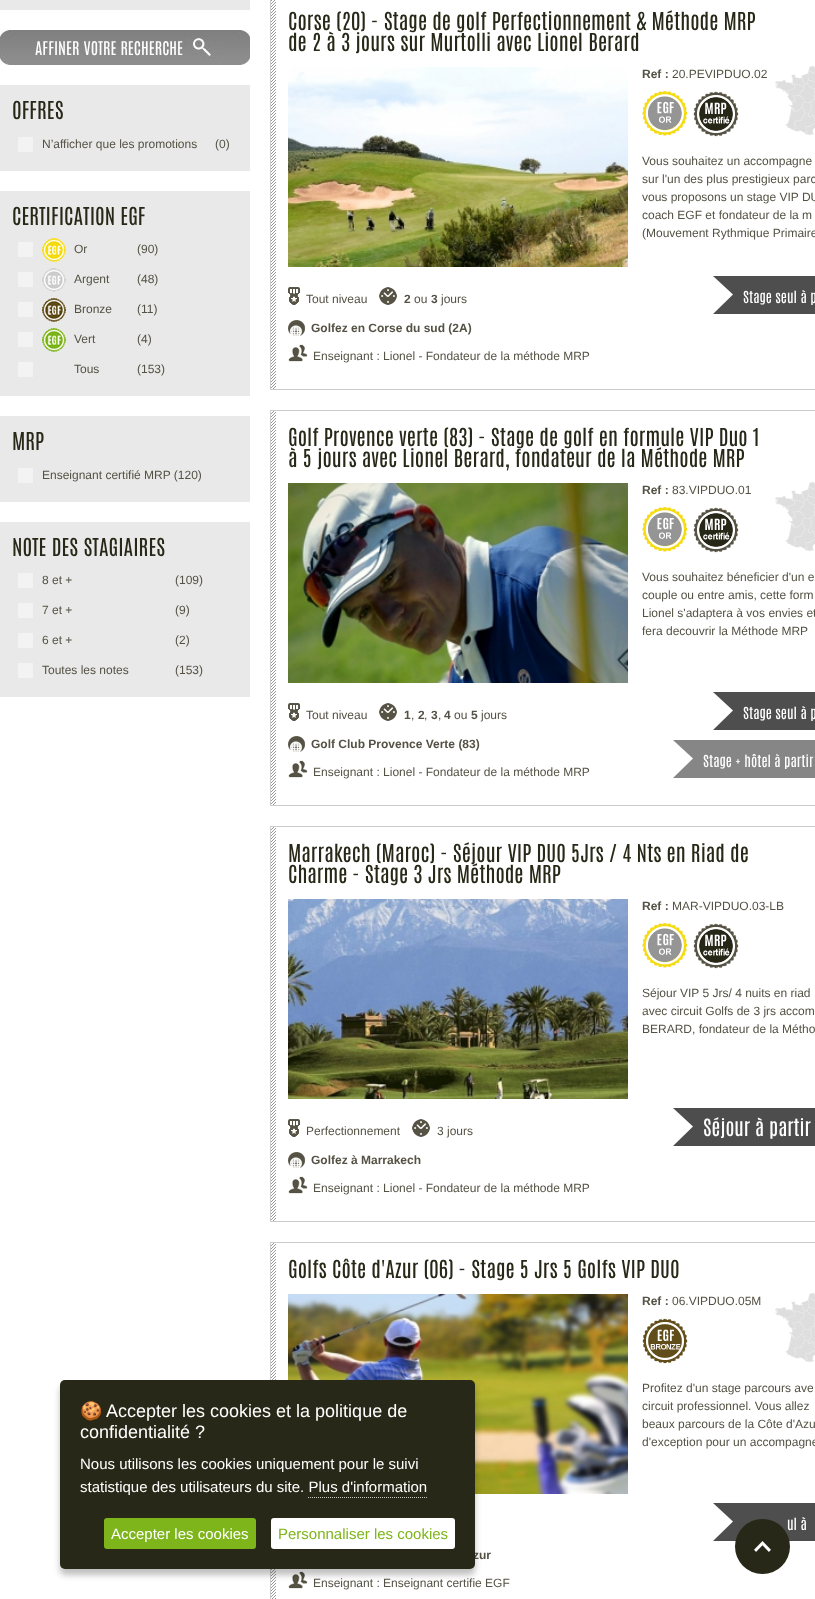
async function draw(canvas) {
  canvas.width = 815
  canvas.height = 1599
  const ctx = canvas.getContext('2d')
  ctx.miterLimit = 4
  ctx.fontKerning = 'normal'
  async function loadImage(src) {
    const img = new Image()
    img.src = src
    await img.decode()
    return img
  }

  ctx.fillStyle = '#fff'
  ctx.fillRect(0, 0, 815, 1599)
  ctx.fillStyle = '#e9e9e9'
  ctx.fillRect(0, 0, 250, 10)
  ctx.drawImage(await loadImage('image0.png'), 0, 30, 250, 35)
  ctx.font = '16px Antonio'
  ctx.fillStyle = '#fff'
  ctx.fillText('AFFINER VOTRE RECHERCHE', 35, 55)
  ctx.fillStyle = '#e9e9e9'
  ctx.fillRect(0, 85, 250, 86)
  ctx.font = '21px Antonio'
  ctx.fillStyle = '#272817'
  ctx.fillText('OFFRES', 12, 119)
  ctx.fillStyle = '#f3f3f3'
  ctx.fillRect(18, 137, 15, 15)
  ctx.font = '12px Liberation Sans'
  ctx.fillStyle = '#545244'
  ctx.fillText('N’afficher que les promotions', 42, 148)
  ctx.fillText('(0)', 215, 148)
  ctx.fillStyle = '#e9e9e9'
  ctx.fillRect(0, 191, 250, 205)
  ctx.font = '21px Antonio'
  ctx.fillStyle = '#272817'
  ctx.fillText('CERTIFICATION EGF', 12, 225)
  ctx.fillStyle = '#f3f3f3'
  ctx.fillRect(18, 242, 15, 15)
  ctx.drawImage(await loadImage('image1.png'), 42, 238, 24, 24)
  ctx.font = '12px Liberation Sans'
  ctx.fillStyle = '#545244'
  ctx.fillText('Or', 74, 253)
  ctx.fillText('(90)', 137, 253)
  ctx.fillStyle = '#f3f3f3'
  ctx.fillRect(18, 272, 15, 15)
  ctx.drawImage(await loadImage('image2.png'), 42, 268, 24, 24)
  ctx.fillStyle = '#545244'
  ctx.fillText('Argent', 74, 283)
  ctx.fillText('(48)', 137, 283)
  ctx.fillStyle = '#f3f3f3'
  ctx.fillRect(18, 302, 15, 15)
  ctx.drawImage(await loadImage('image3.png'), 42, 298, 24, 24)
  ctx.fillStyle = '#545244'
  ctx.fillText('Bronze', 74, 313)
  ctx.fillText('(11)', 137, 313)
  ctx.fillStyle = '#f3f3f3'
  ctx.fillRect(18, 332, 15, 15)
  ctx.drawImage(await loadImage('image4.png'), 42, 328, 24, 24)
  ctx.fillStyle = '#545244'
  ctx.fillText('Vert', 74, 343)
  ctx.fillText('(4)', 137, 343)
  ctx.fillStyle = '#f3f3f3'
  ctx.fillRect(18, 362, 15, 15)
  ctx.fillStyle = '#545244'
  ctx.fillText('Tous', 74, 373)
  ctx.fillText('(153)', 137, 373)
  ctx.fillStyle = '#e9e9e9'
  ctx.fillRect(0, 416, 250, 86)
  ctx.font = '21px Antonio'
  ctx.fillStyle = '#272817'
  ctx.fillText('MRP', 12, 450)
  ctx.fillStyle = '#f3f3f3'
  ctx.fillRect(18, 468, 15, 15)
  ctx.font = '12px Liberation Sans'
  ctx.fillStyle = '#545244'
  ctx.fillText('Enseignant certifié MRP (120)', 42, 479)
  ctx.fillStyle = '#e9e9e9'
  ctx.fillRect(0, 522, 250, 175)
  ctx.font = '21px Antonio'
  ctx.fillStyle = '#272817'
  ctx.fillText('NOTE DES STAGIAIRES', 12, 556)
  ctx.fillStyle = '#f3f3f3'
  ctx.fillRect(18, 573, 15, 15)
  ctx.font = '12px Liberation Sans'
  ctx.fillStyle = '#545244'
  ctx.fillText('8 et +', 42, 584)
  ctx.fillText('(109)', 175, 584)
  ctx.fillStyle = '#f3f3f3'
  ctx.fillRect(18, 603, 15, 15)
  ctx.fillStyle = '#545244'
  ctx.fillText('7 et +', 42, 614)
  ctx.fillText('(9)', 175, 614)
  ctx.fillStyle = '#f3f3f3'
  ctx.fillRect(18, 633, 15, 15)
  ctx.fillStyle = '#545244'
  ctx.fillText('6 et +', 42, 644)
  ctx.fillText('(2)', 175, 644)
  ctx.fillStyle = '#f3f3f3'
  ctx.fillRect(18, 663, 15, 15)
  ctx.fillStyle = '#545244'
  ctx.fillText('Toutes les notes', 42, 674)
  ctx.fillText('(153)', 175, 674)
  ctx.drawImage(await loadImage('image5.png'), 271, 0, 5, 389)
  ctx.strokeStyle = '#ccc'
  ctx.strokeRect(270.5, -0.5, 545, 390)
  ctx.font = '21px Antonio'
  ctx.fillStyle = '#272817'
  ctx.fillText('Corse (20) - Stage de golf Perfectionnement & Méthode MRP', 288, 30)
  ctx.fillText('de 2 à 3 jours sur Murtolli avec Lionel Berard', 288, 51)
  ctx.font = 'bold 12px Liberation Sans'
  ctx.fillStyle = '#545244'
  ctx.fillText('Ref :', 642, 78)
  ctx.font = '12px Liberation Sans'
  ctx.fillText('20.PEVIPDUO.02', 672, 78)
  ctx.drawImage(await loadImage('image6.png'), 775, 66, 40, 70)
  ctx.drawImage(await loadImage('image7.png'), 642, 91, 46, 45)
  ctx.drawImage(await loadImage('image8.png'), 693, 91, 46, 46)
  ctx.fillText('Vous souhaitez un accompagne', 642, 165)
  ctx.fillText('sur l\'un des plus prestigieux parc', 642, 183)
  ctx.fillText('vous proposons un stage VIP DU', 642, 201)
  ctx.fillText('coach EGF et fondateur de la m', 642, 219)
  ctx.fillText('(Mouvement Rythmique Primaire', 642, 237)
  ctx.drawImage(await loadImage('image9.png'), 713, 276, 102, 38)
  ctx.font = '14px Antonio'
  ctx.fillStyle = '#fff'
  ctx.fillText('Stage seul à p', 743, 303)
  ctx.drawImage(await loadImage('image10.png'), 288, 67, 340, 200)
  ctx.drawImage(await loadImage('image11.png'), 288, 287, 12, 18)
  ctx.font = '12px Liberation Sans'
  ctx.fillStyle = '#545244'
  ctx.fillText('Tout niveau', 306, 303)
  ctx.drawImage(await loadImage('image12.png'), 379, 287, 18, 18)
  ctx.font = 'bold 12px Liberation Sans'
  ctx.fillText('2', 404, 303)
  ctx.font = '12px Liberation Sans'
  ctx.fillText('ou', 414, 303)
  ctx.font = 'bold 12px Liberation Sans'
  ctx.fillText('3', 431, 303)
  ctx.font = '12px Liberation Sans'
  ctx.fillText('jours', 441, 303)
  ctx.drawImage(await loadImage('image13.png'), 288, 320, 17, 16)
  ctx.font = 'bold 12px Liberation Sans'
  ctx.fillText('Golfez en Corse du sud (2A)', 311, 332)
  ctx.drawImage(await loadImage('image14.png'), 288, 344, 20, 18)
  ctx.font = '12px Liberation Sans'
  ctx.fillText('Enseignant : Lionel - Fondateur de la méthode MRP', 313, 360)
  ctx.drawImage(await loadImage('image15.png'), 271, 411, 5, 394)
  ctx.strokeRect(270.5, 410.5, 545, 395)
  ctx.font = '21px Antonio'
  ctx.fillStyle = '#272817'
  ctx.fillText('Golf Provence verte (83) - Stage de golf en formule VIP Duo 1', 288, 446)
  ctx.fillText('à 5 jours avec Lionel Berard, fondateur de la Méthode MRP', 288, 467)
  ctx.drawImage(await loadImage('image16.png'), 288, 483, 340, 200)
  ctx.drawImage(await loadImage('image11.png'), 288, 703, 12, 18)
  ctx.font = '12px Liberation Sans'
  ctx.fillStyle = '#545244'
  ctx.fillText('Tout niveau', 306, 719)
  ctx.drawImage(await loadImage('image12.png'), 379, 703, 18, 18)
  ctx.font = 'bold 12px Liberation Sans'
  ctx.fillText('1', 404, 719)
  ctx.font = '12px Liberation Sans'
  ctx.fillText(',', 411, 719)
  ctx.font = 'bold 12px Liberation Sans'
  ctx.fillText('2', 418, 719)
  ctx.font = '12px Liberation Sans'
  ctx.fillText(',', 424, 719)
  ctx.font = 'bold 12px Liberation Sans'
  ctx.fillText('3', 431, 719)
  ctx.font = '12px Liberation Sans'
  ctx.fillText(',', 438, 719)
  ctx.font = 'bold 12px Liberation Sans'
  ctx.fillText('4', 444, 719)
  ctx.font = '12px Liberation Sans'
  ctx.fillText('ou', 454, 719)
  ctx.font = 'bold 12px Liberation Sans'
  ctx.fillText('5', 471, 719)
  ctx.font = '12px Liberation Sans'
  ctx.fillText('jours', 481, 719)
  ctx.drawImage(await loadImage('image13.png'), 288, 736, 17, 16)
  ctx.font = 'bold 12px Liberation Sans'
  ctx.fillText('Golf Club Provence Verte (83)', 311, 748)
  ctx.drawImage(await loadImage('image14.png'), 288, 760, 20, 18)
  ctx.font = '12px Liberation Sans'
  ctx.fillText('Enseignant : Lionel - Fondateur de la méthode MRP', 313, 776)
  ctx.font = 'bold 12px Liberation Sans'
  ctx.fillText('Ref :', 642, 494)
  ctx.font = '12px Liberation Sans'
  ctx.fillText('83.VIPDUO.01', 672, 494)
  ctx.drawImage(await loadImage('image6.png'), 775, 482, 40, 70)
  ctx.drawImage(await loadImage('image7.png'), 642, 507, 46, 45)
  ctx.drawImage(await loadImage('image8.png'), 693, 507, 46, 46)
  ctx.fillText('Vous souhaitez béneficier d\'un e', 642, 581)
  ctx.fillText('couple ou entre amis, cette form', 642, 599)
  ctx.fillText('Lionel s\'adaptera à vos envies et', 642, 617)
  ctx.fillText('fera decouvrir la Méthode MRP', 642, 635)
  ctx.drawImage(await loadImage('image9.png'), 713, 692, 102, 38)
  ctx.font = '14px Antonio'
  ctx.fillStyle = '#fff'
  ctx.fillText('Stage seul à p', 743, 719)
  ctx.drawImage(await loadImage('image17.png'), 673, 740, 142, 38)
  ctx.fillText('Stage + hôtel à partir', 703, 767)
  ctx.drawImage(await loadImage('image15.png'), 271, 827, 5, 394)
  ctx.strokeRect(270.5, 826.5, 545, 395)
  ctx.font = '21px Antonio'
  ctx.fillStyle = '#272817'
  ctx.fillText('Marrakech (Maroc) - Séjour VIP DUO 5Jrs / 4 Nts en Riad de', 288, 862)
  ctx.fillText('Charme - Stage 3 Jrs Méthode MRP', 288, 883)
  ctx.font = 'bold 12px Liberation Sans'
  ctx.fillStyle = '#545244'
  ctx.fillText('Ref :', 642, 910)
  ctx.font = '12px Liberation Sans'
  ctx.fillText('MAR-VIPDUO.03-LB', 672, 910)
  ctx.drawImage(await loadImage('image7.png'), 642, 923, 46, 45)
  ctx.drawImage(await loadImage('image8.png'), 693, 923, 46, 46)
  ctx.fillText('Séjour VIP 5 Jrs/ 4 nuits en riad', 642, 997)
  ctx.fillText('avec circuit Golfs de 3 jrs accom', 642, 1015)
  ctx.fillText('BERARD, fondateur de la Métho', 642, 1033)
  ctx.drawImage(await loadImage('image18.png'), 673, 1108, 142, 38)
  ctx.font = '20px Antonio'
  ctx.fillStyle = '#fff'
  ctx.fillText('Séjour à partir', 703, 1136)
  ctx.drawImage(await loadImage('image19.png'), 288, 899, 340, 200)
  ctx.drawImage(await loadImage('image11.png'), 288, 1119, 12, 18)
  ctx.font = '12px Liberation Sans'
  ctx.fillStyle = '#545244'
  ctx.fillText('Perfectionnement', 306, 1135)
  ctx.drawImage(await loadImage('image12.png'), 412, 1119, 18, 18)
  ctx.fillText('3 jours', 437, 1135)
  ctx.drawImage(await loadImage('image13.png'), 288, 1152, 17, 16)
  ctx.font = 'bold 12px Liberation Sans'
  ctx.fillText('Golfez à Marrakech', 311, 1164)
  ctx.drawImage(await loadImage('image14.png'), 288, 1176, 20, 18)
  ctx.font = '12px Liberation Sans'
  ctx.fillText('Enseignant : Lionel - Fondateur de la méthode MRP', 313, 1192)
  ctx.drawImage(await loadImage('image20.png'), 271, 1243, 5, 356)
  ctx.strokeRect(270.5, 1242.5, 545, 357)
  ctx.font = '21px Antonio'
  ctx.fillStyle = '#272817'
  ctx.fillText('Golfs Côte d\'Azur (06) - Stage 5 Jrs 5 Golfs VIP DUO', 288, 1278)
  ctx.font = 'bold 12px Liberation Sans'
  ctx.fillStyle = '#545244'
  ctx.fillText('Ref :', 642, 1305)
  ctx.font = '12px Liberation Sans'
  ctx.fillText('06.VIPDUO.05M', 672, 1305)
  ctx.drawImage(await loadImage('image6.png'), 775, 1293, 40, 70)
  ctx.drawImage(await loadImage('image21.png'), 642, 1318, 46, 46)
  ctx.fillText('Profitez d\'un stage parcours ave', 642, 1392)
  ctx.fillText('circuit professionnel. Vous allez', 642, 1410)
  ctx.fillText('beaux parcours de la Côte d\'Azu', 642, 1428)
  ctx.fillText('d\'exception pour un accompagne', 642, 1446)
  ctx.drawImage(await loadImage('image9.png'), 713, 1503, 102, 38)
  ctx.font = '14px Antonio'
  ctx.fillStyle = '#fff'
  ctx.fillText('ul à', 787, 1530)
  ctx.drawImage(await loadImage('image22.png'), 288, 1294, 340, 200)
  ctx.font = 'bold 12px Liberation Sans'
  ctx.fillStyle = '#545244'
  ctx.fillText('zur', 473, 1559)
  ctx.drawImage(await loadImage('image14.png'), 288, 1571, 20, 18)
  ctx.font = '12px Liberation Sans'
  ctx.fillText('Enseignant : Enseignant certifie EGF', 313, 1587)
  ctx.fillStyle = '#272817'
  ctx.beginPath()
  ctx.arc(762.5, 1546.5, 27.5, 0, 2 * Math.PI)
  ctx.fill()
  ctx.drawImage(await loadImage('image23.png'), 754, 1541, 17, 11)
  ctx.fillStyle = '#00000040'
  ctx.filter = 'blur(3px)'
  ctx.beginPath()
  ctx.roundRect(60, 1386, 415, 189, 5)
  ctx.fill()
  ctx.filter = 'none'
  ctx.fillStyle = '#272817'
  ctx.beginPath()
  ctx.roundRect(60, 1380, 415, 189, 5)
  ctx.fill()
  ctx.font = '18px Noto Color Emoji'
  ctx.fillStyle = '#fff'
  ctx.fillText('🍪', 80, 1417)
  ctx.font = '18px Liberation Sans'
  ctx.fillText('Accepter les cookies et la politique de', 106, 1417)
  ctx.fillText('confidentialité ?', 80, 1438)
  ctx.font = '15px Liberation Sans'
  ctx.fillText('Nous utilisons les cookies uniquement pour le suivi', 80, 1469)
  ctx.fillText('statistique des utilisateurs du site. Plus d\'information', 80, 1492)
  ctx.beginPath()
  ctx.moveTo(308, 1497.5)
  ctx.lineTo(427, 1497.5)
  ctx.strokeStyle = '#c9c9c5'
  ctx.setLineDash([1, 1])
  ctx.stroke()
  ctx.fillStyle = '#7db51b'
  ctx.beginPath()
  ctx.roundRect(104, 1518, 152, 31, 3)
  ctx.fill()
  ctx.fillStyle = '#fff'
  ctx.fillText('Accepter les cookies', 111, 1539)
  ctx.beginPath()
  ctx.roundRect(271, 1518, 184, 31, 3)
  ctx.fill()
  ctx.fillStyle = '#7db51b'
  ctx.fillText('Personnaliser les cookies', 278, 1539)
}

draw(document.querySelector('canvas'))
